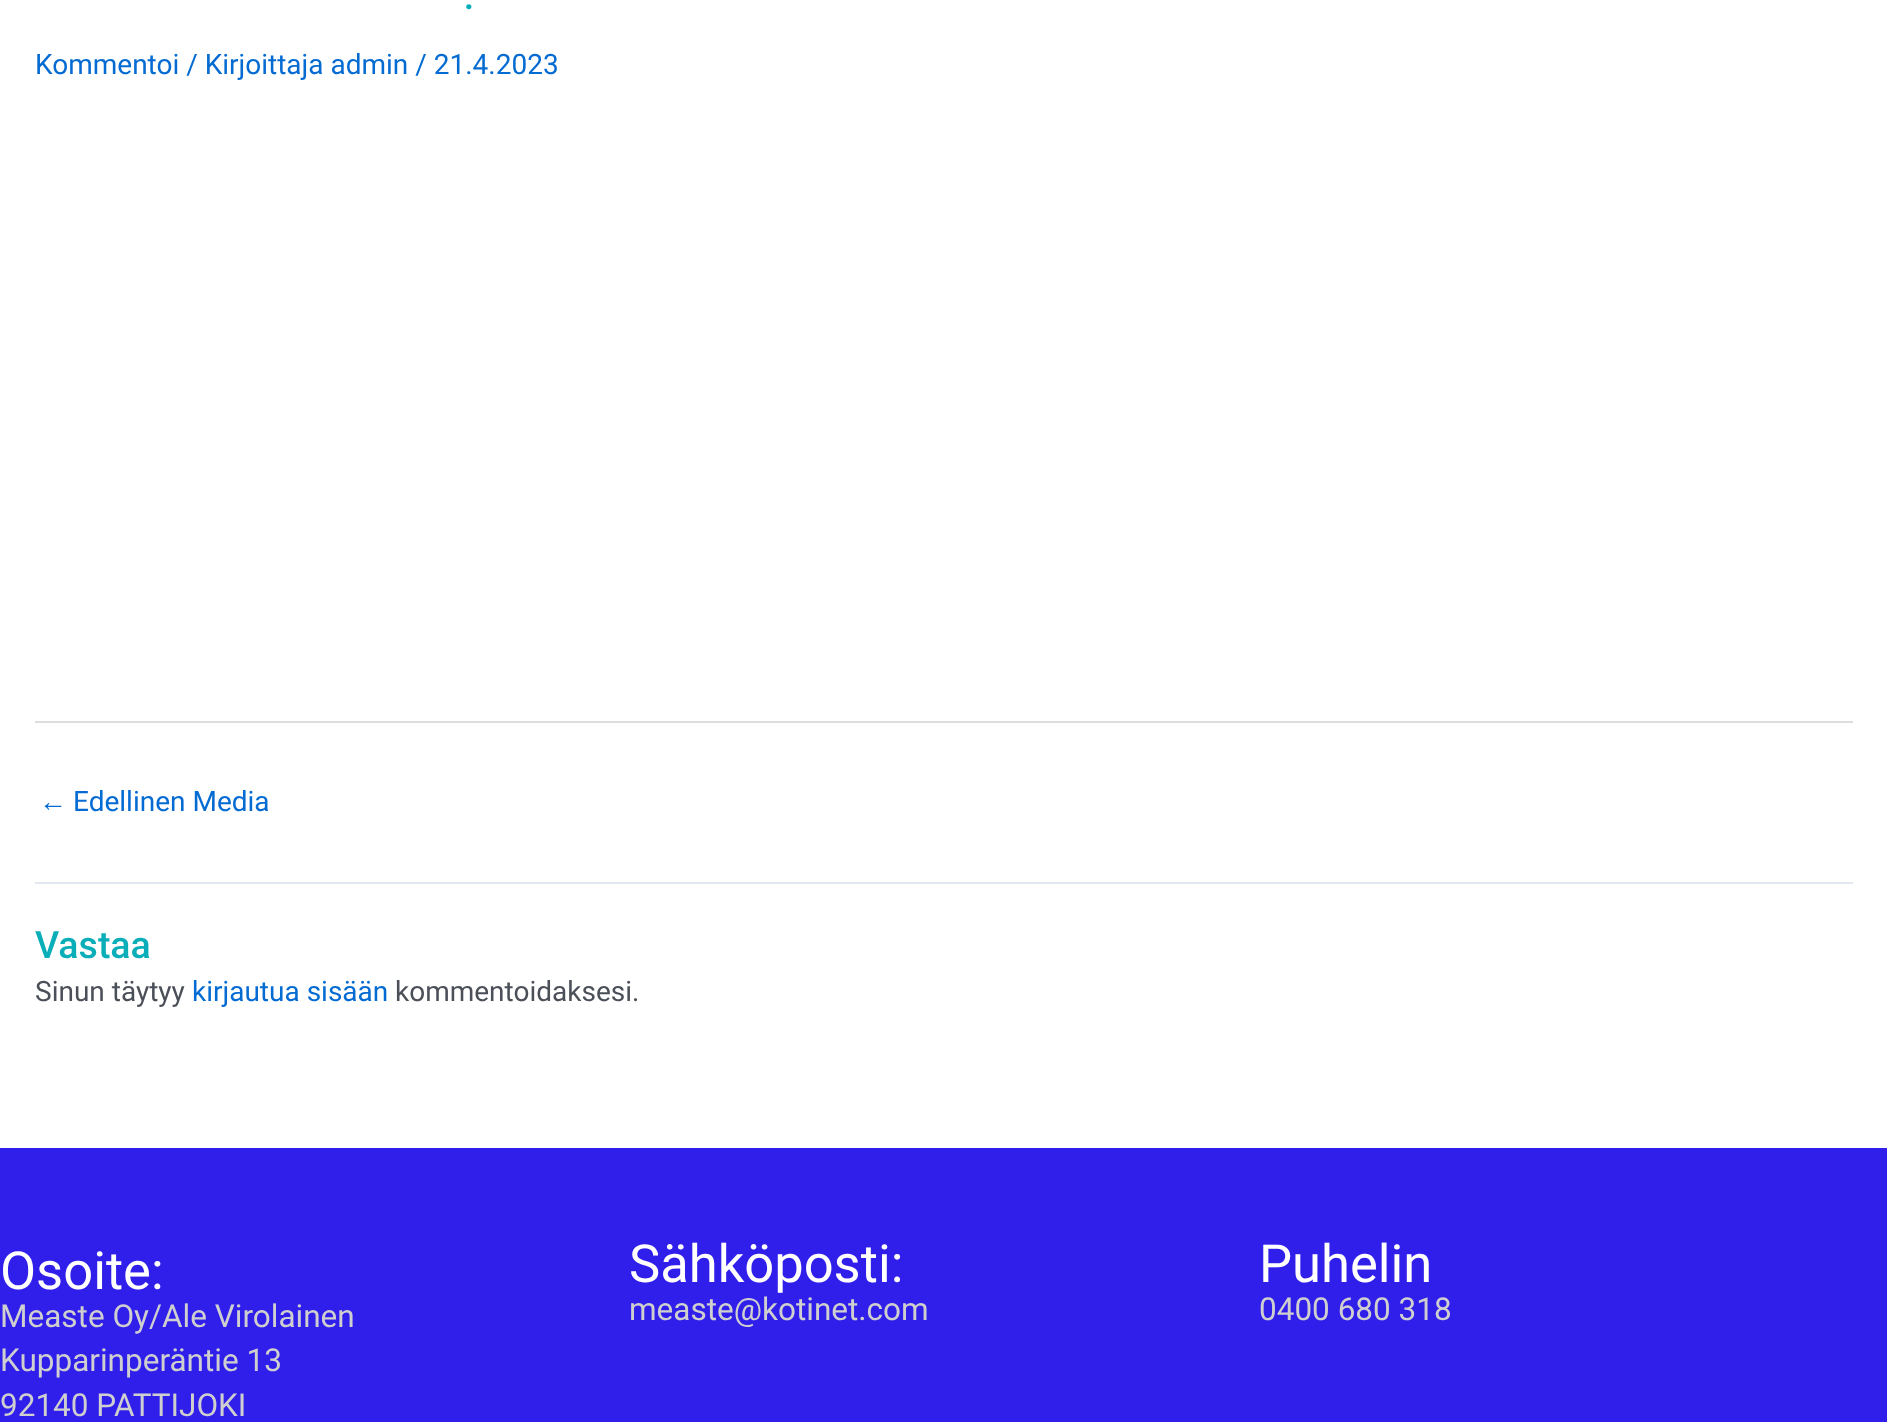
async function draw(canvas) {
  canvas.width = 1887
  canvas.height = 1422
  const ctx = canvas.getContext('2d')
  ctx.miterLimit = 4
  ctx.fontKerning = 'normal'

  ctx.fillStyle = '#fff'
  ctx.fillRect(0, 0, 1887, 1422)
  ctx.font = '46px Roboto'
  ctx.fillStyle = '#09aeb8'
  ctx.fillText('.', 463, 9)
  ctx.font = '28px Roboto'
  ctx.fillStyle = '#046bd2'
  ctx.fillText('Kommentoi / Kirjoittaja admin / 21.4.2023', 35, 74)
  ctx.fillStyle = '#ddd'
  ctx.fillRect(35, 721, 1818, 2)
  ctx.font = '28px Liberation Sans'
  ctx.fillStyle = '#046bd2'
  ctx.fillText('←', 39, 811)
  ctx.font = '28px Roboto'
  ctx.fillText('Edellinen Media', 73, 811)
  ctx.fillStyle = '#e2e8f0'
  ctx.fillRect(35, 882, 1818, 2)
  ctx.font = '500 37.5px Roboto'
  ctx.fillStyle = '#09aeb8'
  ctx.fillText('Vastaa', 35, 958)
  ctx.font = '28px Roboto'
  ctx.fillStyle = '#4b4f58'
  ctx.fillText('Sinun täytyy', 35, 1001)
  ctx.fillStyle = '#046bd2'
  ctx.fillText('kirjautua sisään', 192, 1001)
  ctx.fillStyle = '#4b4f58'
  ctx.fillText('kommentoidaksesi.', 395, 1001)
  ctx.fillStyle = '#301feb'
  ctx.fillRect(0, 1148, 1887, 274)
  ctx.font = '52.5px Roboto'
  ctx.fillStyle = '#fff'
  ctx.fillText('Osoite:', 0, 1289)
  ctx.font = '31.5px Roboto'
  ctx.fillStyle = '#cfcfcf'
  ctx.fillText('Measte Oy/Ale Virolainen', 0, 1327)
  ctx.fillText('Kupparinperäntie 13', 0, 1371)
  ctx.fillText('92140 PATTIJOKI', 0, 1416)
  ctx.font = '52.5px Roboto'
  ctx.fillStyle = '#fff'
  ctx.fillText('Sähköposti:', 629, 1282)
  ctx.font = '31.5px Roboto'
  ctx.fillStyle = '#cfcfcf'
  ctx.fillText('measte@kotinet.com', 629, 1320)
  ctx.font = '52.5px Roboto'
  ctx.fillStyle = '#fff'
  ctx.fillText('Puhelin', 1259, 1282)
  ctx.font = '31.5px Roboto'
  ctx.fillStyle = '#cfcfcf'
  ctx.fillText('0400 680 318', 1259, 1320)
}

draw(document.querySelector('canvas'))
